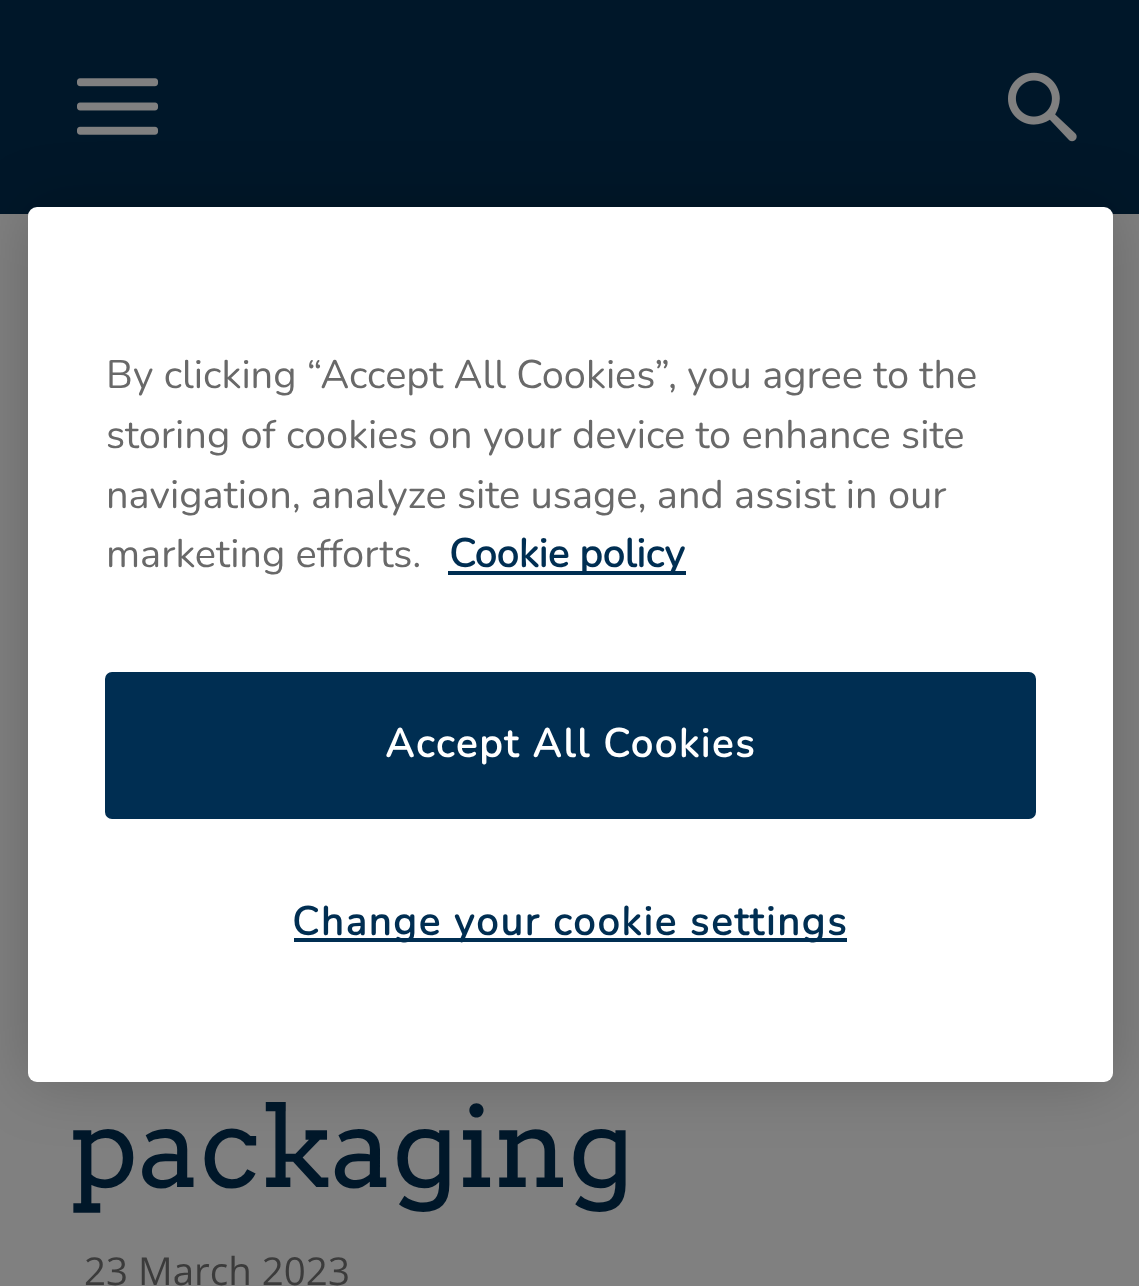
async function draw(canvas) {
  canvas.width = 1139
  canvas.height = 1286
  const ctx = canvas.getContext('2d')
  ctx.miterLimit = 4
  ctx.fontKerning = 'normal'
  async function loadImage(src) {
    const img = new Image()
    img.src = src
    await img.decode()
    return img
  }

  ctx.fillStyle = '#808080'
  ctx.fillRect(0, 0, 1139, 1286)
  ctx.fillStyle = '#001729'
  ctx.fillRect(0, 0, 1139, 214)
  ctx.drawImage(await loadImage('image0.png'), 77, 78, 82, 57)
  ctx.drawImage(await loadImage('image1.png'), 1008, 72, 69, 70)
  ctx.fillStyle = '#00000033'
  ctx.filter = 'blur(31.5px)'
  ctx.beginPath()
  ctx.roundRect(28, 207, 1085, 875, 9)
  ctx.fill()
  ctx.filter = 'none'
  ctx.fillStyle = '#fff'
  ctx.beginPath()
  ctx.roundRect(28, 207, 1085, 875, 9)
  ctx.fill()
  ctx.font = '200 39.8px Nunito'
  ctx.fillStyle = '#696969'
  ctx.fillText('By clicking “Accept All Cookies”, you agree to the', 106, 388)
  ctx.fillText('storing of cookies on your device to enhance site', 106, 448)
  ctx.fillText('navigation, analyze site usage, and assist in our', 106, 508)
  ctx.fillText('marketing efforts.', 106, 567)
  ctx.fillStyle = '#002e52'
  ctx.fillRect(448, 571, 238, 4)
  ctx.font = 'bold 39.8px Nunito'
  ctx.fillText('Cookie policy', 449, 567)
  ctx.beginPath()
  ctx.roundRect(107, 674, 927, 143, 5)
  ctx.fill()
  ctx.strokeStyle = '#002e52'
  ctx.lineWidth = 4
  ctx.stroke()
  ctx.letterSpacing = '2px'
  ctx.fillStyle = '#fff'
  ctx.fillText('Accept All Cookies', 385, 757)
  ctx.fillStyle = '#002e52'
  ctx.fillRect(294, 938, 553, 4)
  ctx.fillText('Change your cookie settings', 292, 935)
  ctx.letterSpacing = '0px'
  ctx.font = '112px Arvo'
  ctx.fillStyle = '#001729'
  ctx.fillText('packaging', 70, 1187)
  ctx.font = '38.5px Open Sans'
  ctx.fillStyle = '#3b3b3b'
  ctx.fillText('23 March 2023', 84, 1285)
}

draw(document.querySelector('canvas'))
